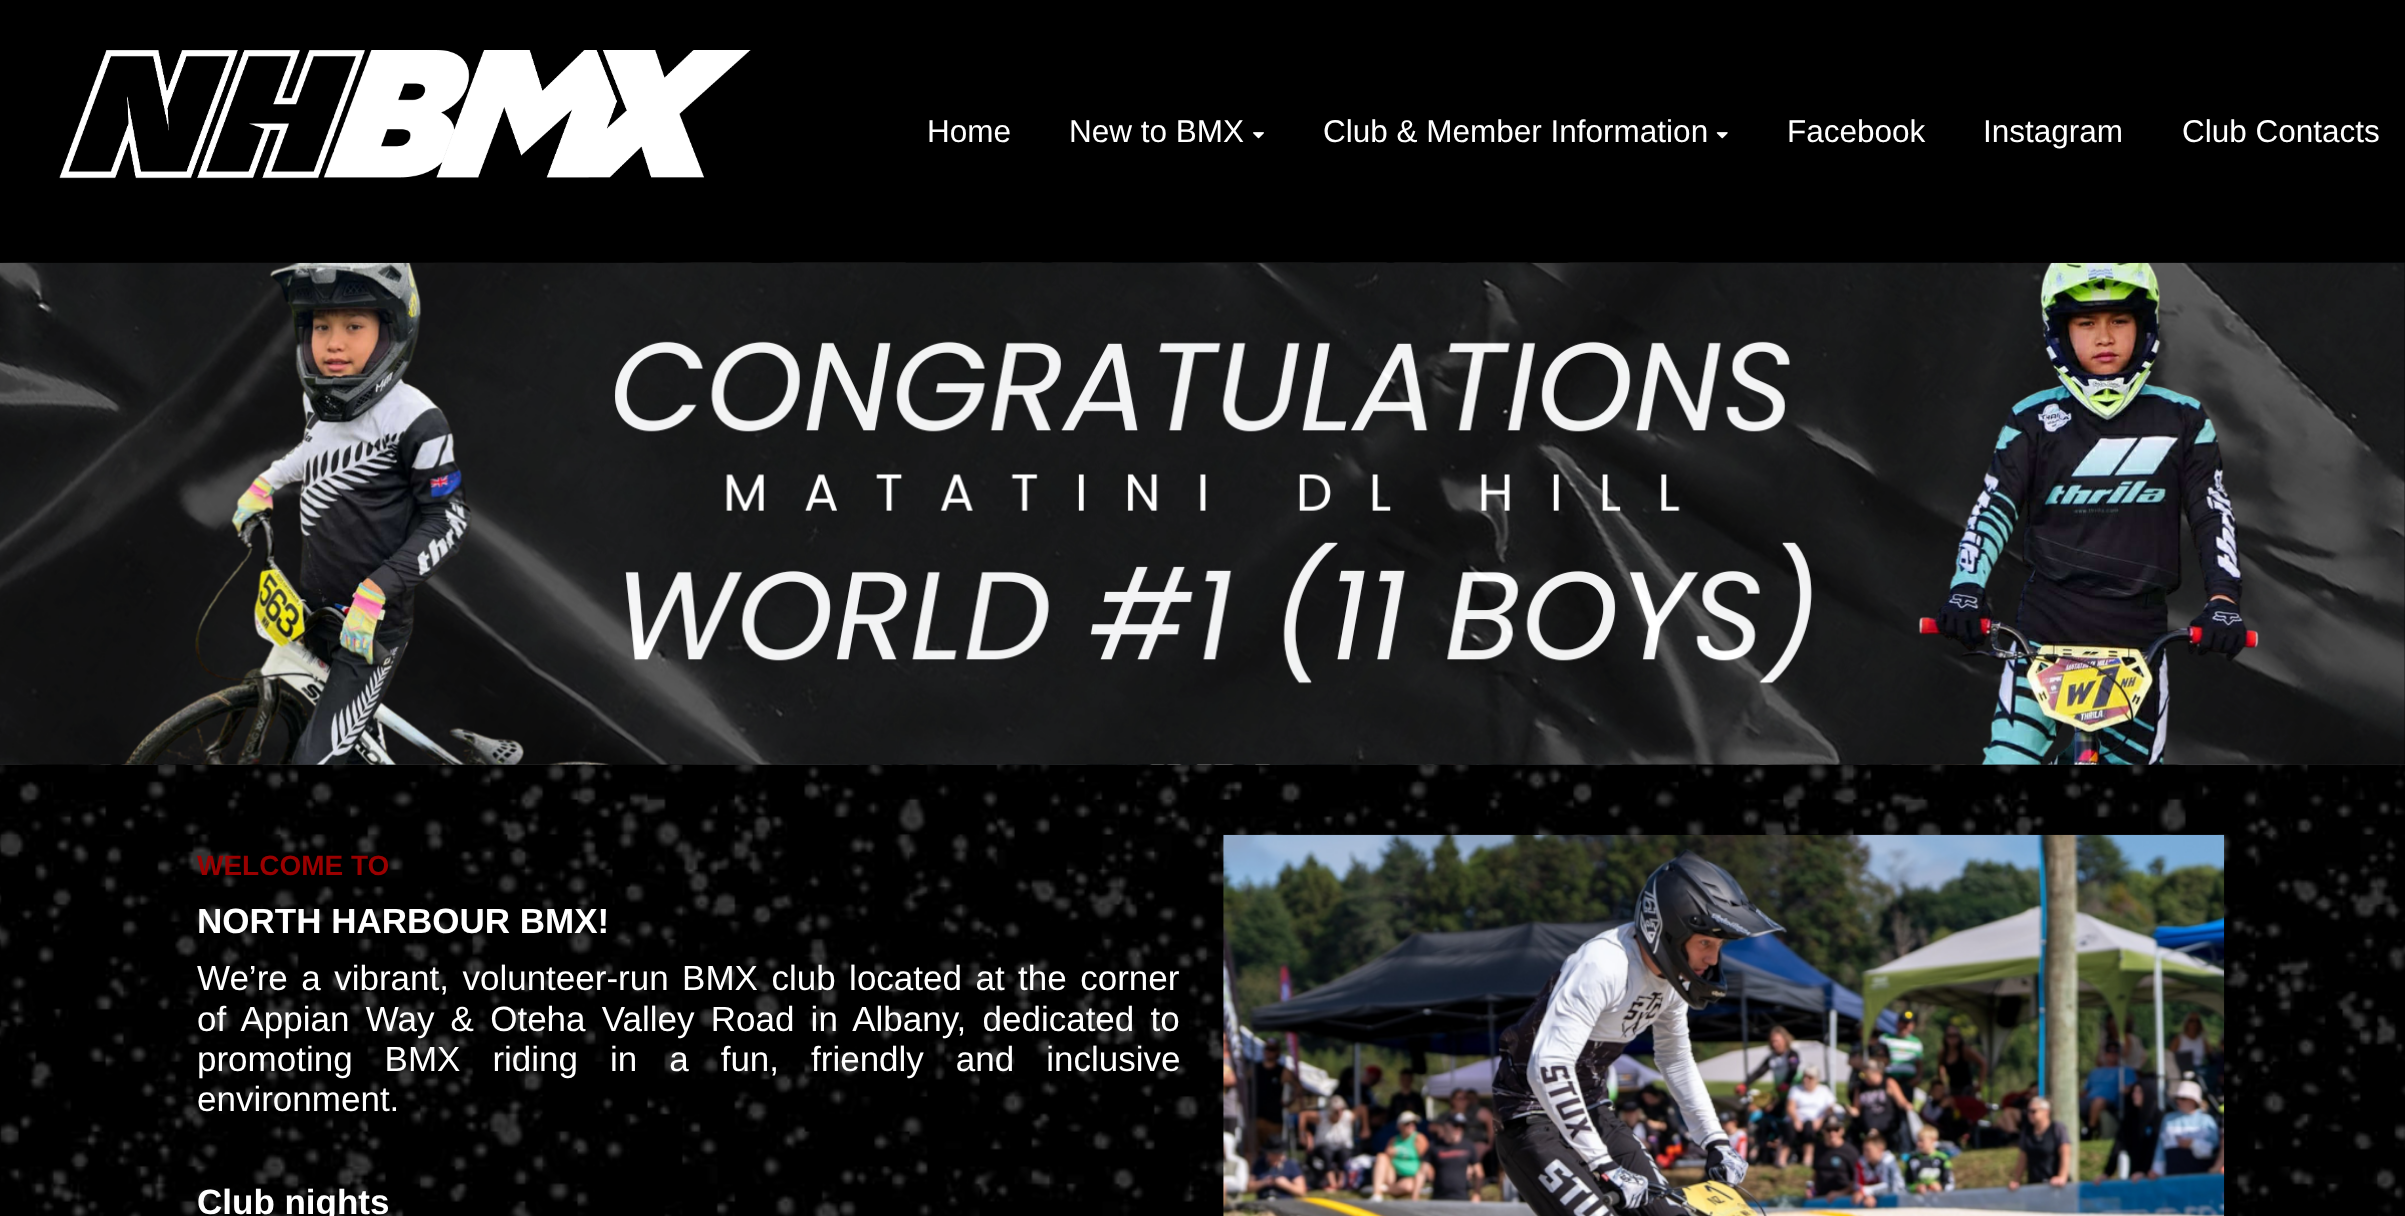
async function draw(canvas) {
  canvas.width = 2405
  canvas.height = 1216
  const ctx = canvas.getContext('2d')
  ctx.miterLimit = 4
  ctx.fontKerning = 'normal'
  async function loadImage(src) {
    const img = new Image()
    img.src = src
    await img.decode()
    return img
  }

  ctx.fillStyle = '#000'
  ctx.fillRect(0, 0, 2405, 1216)
  ctx.drawImage(await loadImage('image3.png'), 0, 262, 2405, 503)
  ctx.drawImage(await loadImage('image5.png'), 0, 764, 2405, 452)
  ctx.drawImage(await loadImage('image4.png'), 0, 262, 2405, 503)
  ctx.fillStyle = '#000000d1'
  ctx.fillRect(0, 262, 2405, 1)
  ctx.drawImage(await loadImage('image0.png'), 59, 50, 692, 129)
  ctx.font = '31.5px Liberation Sans'
  ctx.fillStyle = '#fff'
  ctx.fillText('Home', 927, 142)
  ctx.fillText('New to BMX', 1069, 142)
  ctx.drawImage(await loadImage('image1.png'), 1253, 132, 11, 7)
  ctx.fillText('Club & Member Information', 1323, 142)
  ctx.drawImage(await loadImage('image2.png'), 1716, 132, 12, 7)
  ctx.fillText('Facebook', 1787, 142)
  ctx.fillText('Instagram', 1983, 142)
  ctx.fillText('Club Contacts', 2182, 142)
  ctx.font = 'bold 28px Liberation Sans'
  ctx.fillStyle = '#9a0000'
  ctx.fillText('WELCOME TO', 197, 875)
  ctx.font = 'bold 35px Liberation Sans'
  ctx.fillStyle = '#fff'
  ctx.fillText('NORTH HARBOUR BMX!', 197, 933)
  ctx.wordSpacing = '3.75px'
  ctx.font = '35px Liberation Sans'
  ctx.fillText('We’re a vibrant, volunteer-run BMX club located at the corner', 197, 990)
  ctx.wordSpacing = '6.5px'
  ctx.fillText('of Appian Way & Oteha Valley Road in Albany, dedicated to', 197, 1031)
  ctx.wordSpacing = '22.25px'
  ctx.fillText('promoting BMX riding in a fun, friendly and inclusive', 197, 1071)
  ctx.wordSpacing = '0px'
  ctx.fillText('environment.', 197, 1111)
  ctx.font = 'bold 35px Liberation Sans'
  ctx.fillText('Club nights', 197, 1214)
  ctx.drawImage(await loadImage('image6.png'), 1223, 834, 1002, 382)
}

draw(document.querySelector('canvas'))
